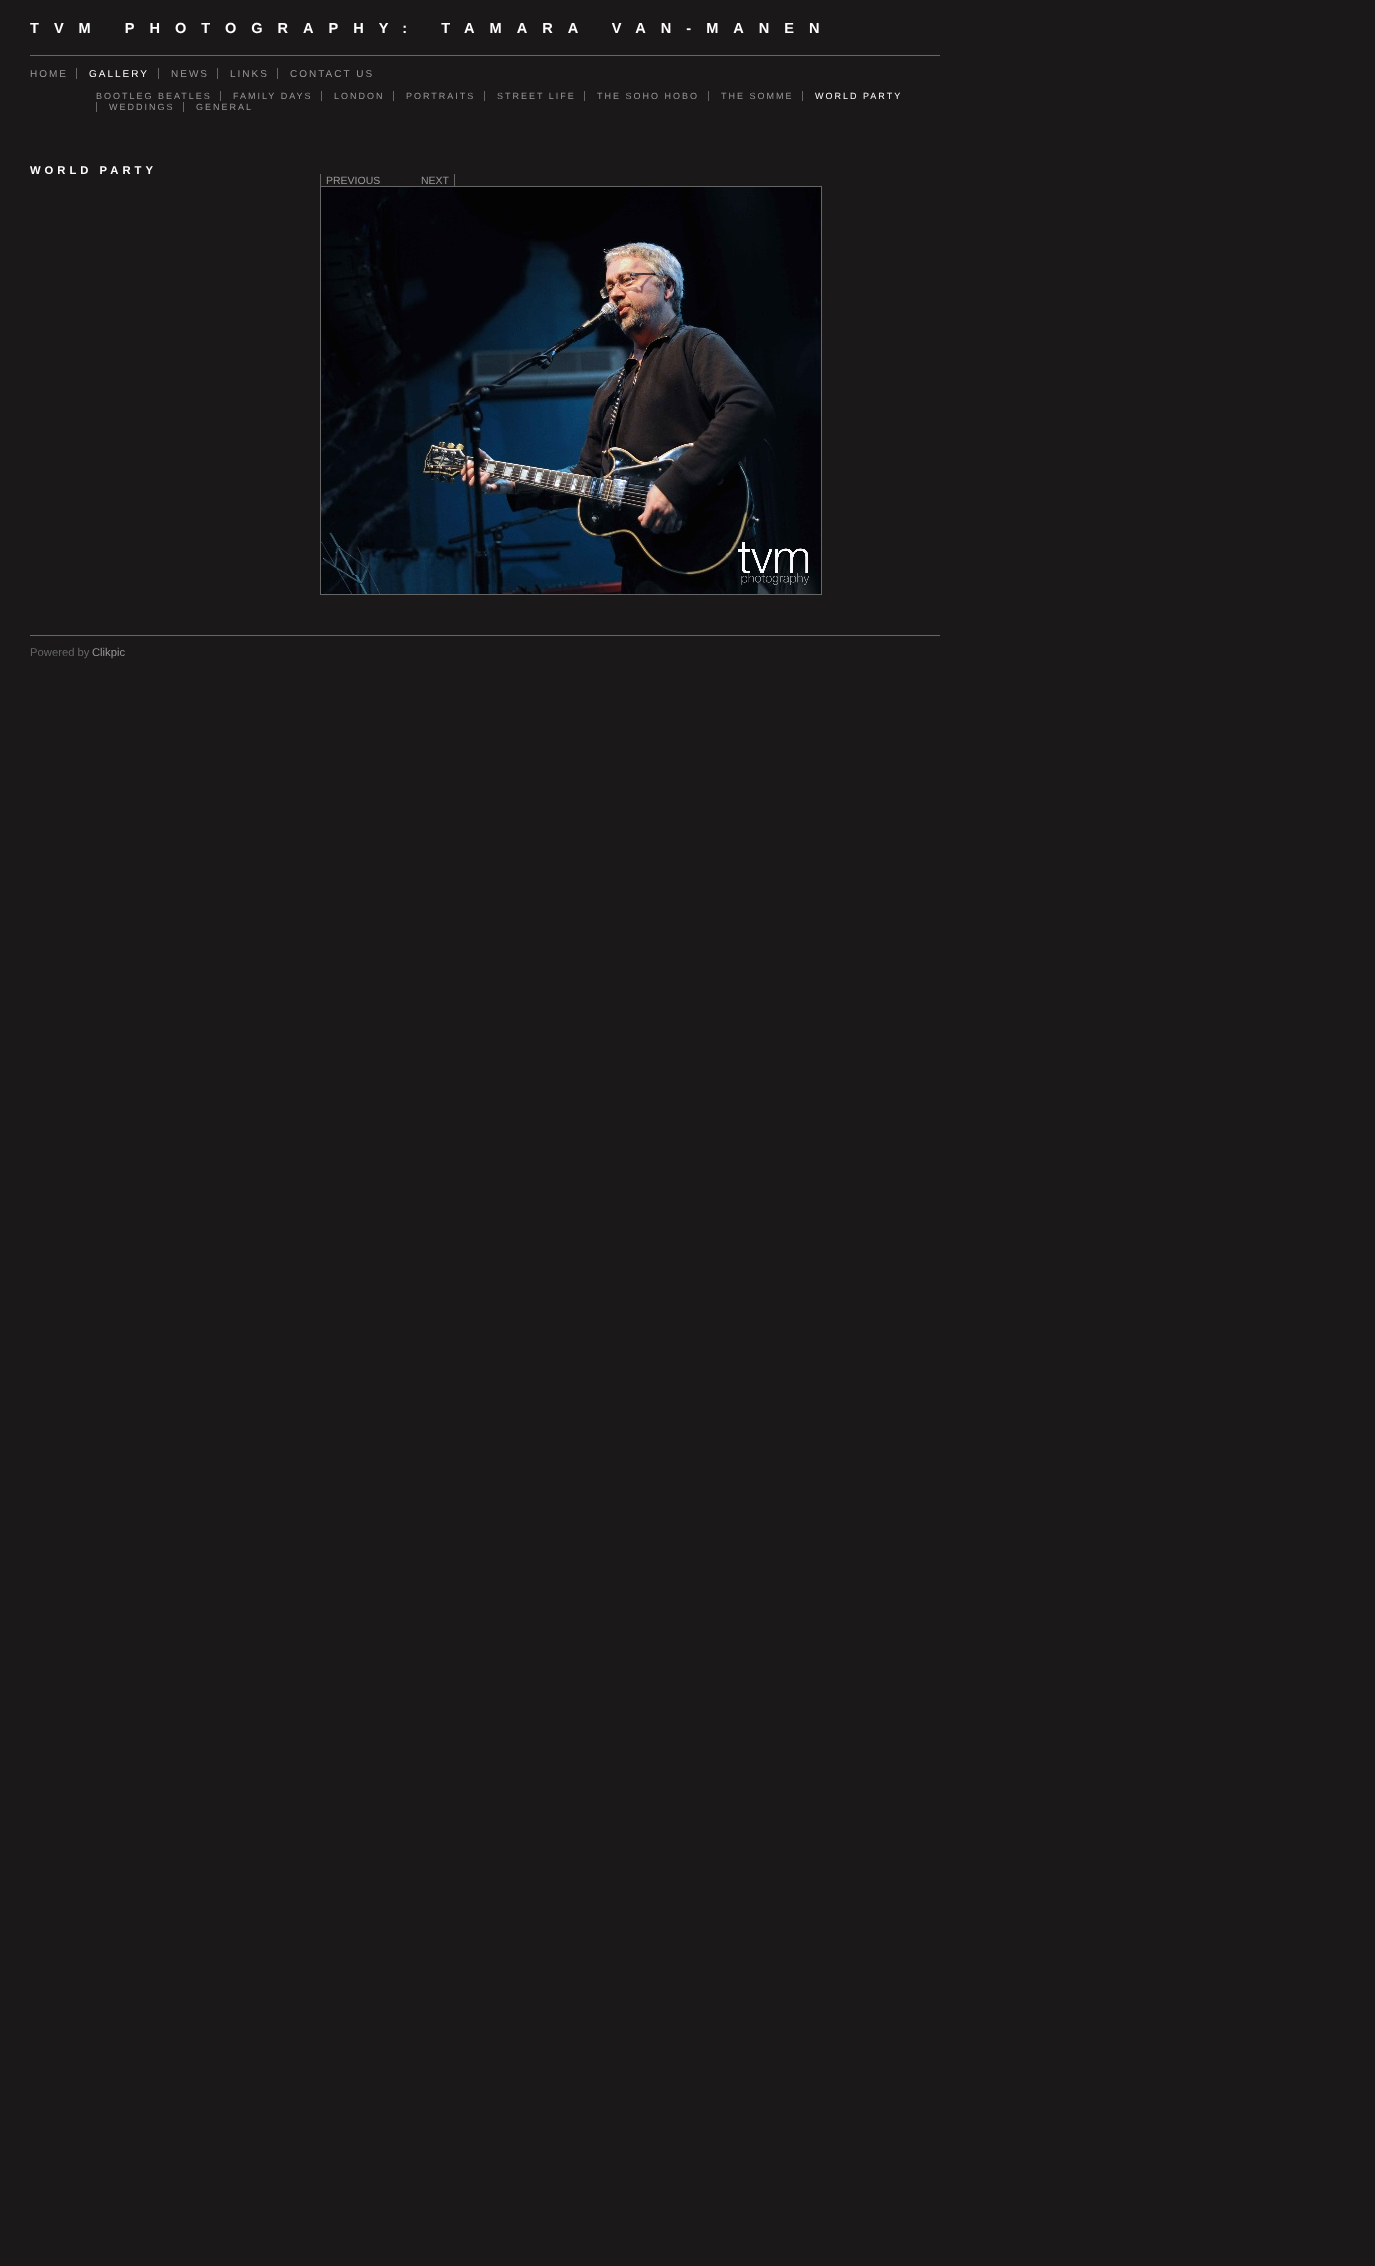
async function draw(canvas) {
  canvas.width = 1375
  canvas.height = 2266
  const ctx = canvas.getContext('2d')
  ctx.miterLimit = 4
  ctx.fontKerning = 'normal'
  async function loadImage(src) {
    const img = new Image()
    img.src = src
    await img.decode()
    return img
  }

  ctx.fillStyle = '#1a1818'
  ctx.fillRect(0, 0, 1375, 2266)
  ctx.fillStyle = '#666'
  ctx.fillRect(30, 55, 910, 1)
  ctx.letterSpacing = '15px'
  ctx.font = 'bold 14.55px Liberation Sans'
  ctx.fillStyle = '#fff'
  ctx.fillText('TVM PHOTOGRAPHY: TAMARA VAN-MANEN', 30, 33)
  ctx.letterSpacing = '2px'
  ctx.font = '10px Liberation Sans'
  ctx.fillStyle = '#999'
  ctx.fillText('HOME', 30, 77)
  ctx.fillStyle = '#666'
  ctx.fillRect(76, 68, 1, 11)
  ctx.fillStyle = '#fff'
  ctx.fillText('GALLERY', 89, 77)
  ctx.fillStyle = '#666'
  ctx.fillRect(158, 68, 1, 11)
  ctx.fillStyle = '#999'
  ctx.fillText('NEWS', 171, 77)
  ctx.fillStyle = '#666'
  ctx.fillRect(217, 68, 1, 11)
  ctx.fillStyle = '#999'
  ctx.fillText('LINKS', 230, 77)
  ctx.fillStyle = '#666'
  ctx.fillRect(277, 68, 1, 11)
  ctx.fillStyle = '#999'
  ctx.fillText('CONTACT US', 290, 77)
  ctx.font = '9px Liberation Sans'
  ctx.fillText('BOOTLEG BEATLES', 96, 99)
  ctx.fillStyle = '#666'
  ctx.fillRect(220, 91, 1, 10)
  ctx.fillStyle = '#999'
  ctx.fillText('FAMILY DAYS', 233, 99)
  ctx.fillStyle = '#666'
  ctx.fillRect(321, 91, 1, 10)
  ctx.fillStyle = '#999'
  ctx.fillText('LONDON', 334, 99)
  ctx.fillStyle = '#666'
  ctx.fillRect(393, 91, 1, 10)
  ctx.fillStyle = '#999'
  ctx.fillText('PORTRAITS', 406, 99)
  ctx.fillStyle = '#666'
  ctx.fillRect(484, 91, 1, 10)
  ctx.fillStyle = '#999'
  ctx.fillText('STREET LIFE', 497, 99)
  ctx.fillStyle = '#666'
  ctx.fillRect(584, 91, 1, 10)
  ctx.fillStyle = '#999'
  ctx.fillText('THE SOHO HOBO', 597, 99)
  ctx.fillStyle = '#666'
  ctx.fillRect(708, 91, 1, 10)
  ctx.fillStyle = '#999'
  ctx.fillText('THE SOMME', 721, 99)
  ctx.fillStyle = '#666'
  ctx.fillRect(802, 91, 1, 10)
  ctx.fillStyle = '#fff'
  ctx.fillText('WORLD PARTY', 815, 99)
  ctx.fillStyle = '#666'
  ctx.fillRect(96, 102, 1, 10)
  ctx.fillStyle = '#999'
  ctx.fillText('WEDDINGS', 109, 110)
  ctx.fillStyle = '#666'
  ctx.fillRect(183, 102, 1, 10)
  ctx.fillStyle = '#999'
  ctx.fillText('GENERAL', 196, 110)
  ctx.letterSpacing = '4px'
  ctx.font = 'bold 11.25px Liberation Sans'
  ctx.fillStyle = '#fff'
  ctx.fillText('WORLD PARTY', 30, 174)
  ctx.fillStyle = '#666'
  ctx.fillRect(320, 174, 1, 12)
  ctx.letterSpacing = '0px'
  ctx.font = '10.5px Liberation Sans'
  ctx.fillStyle = '#999'
  ctx.fillText('PREVIOUS', 326, 184)
  ctx.fillStyle = '#666'
  ctx.fillRect(454, 174, 1, 12)
  ctx.fillStyle = '#999'
  ctx.fillText('NEXT', 421, 184)
  ctx.strokeStyle = '#666'
  ctx.strokeRect(320.5, 186.5, 501, 408)
  ctx.drawImage(await loadImage('image0.png'), 321, 187, 500, 407)
  ctx.fillStyle = '#666'
  ctx.fillRect(30, 635, 910, 1)
  ctx.font = '11.25px Liberation Sans'
  ctx.fillText('Powered by', 30, 656)
  ctx.fillStyle = '#999'
  ctx.fillText('Clikpic', 92, 656)
}

draw(document.querySelector('canvas'))
